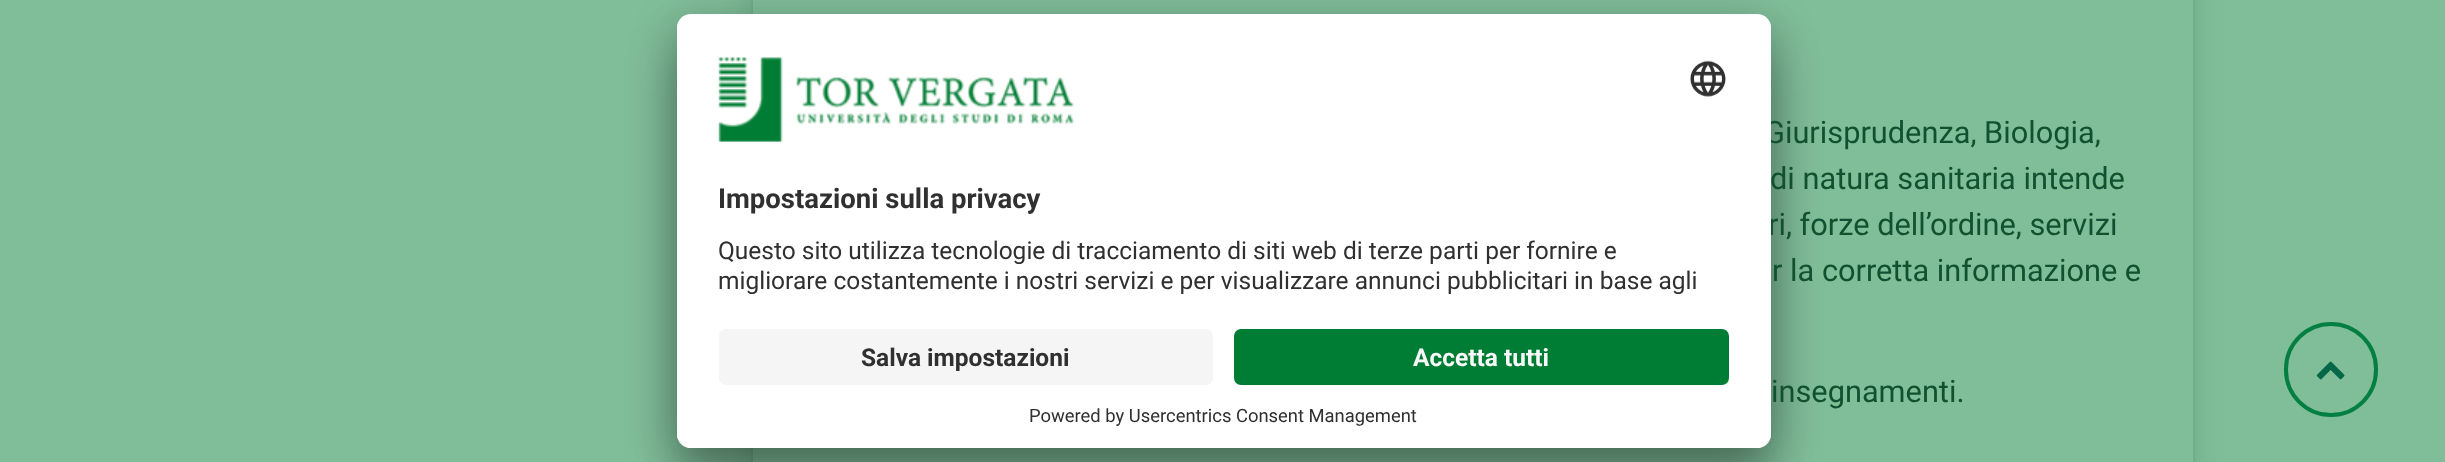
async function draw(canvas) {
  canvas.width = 2445
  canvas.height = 462
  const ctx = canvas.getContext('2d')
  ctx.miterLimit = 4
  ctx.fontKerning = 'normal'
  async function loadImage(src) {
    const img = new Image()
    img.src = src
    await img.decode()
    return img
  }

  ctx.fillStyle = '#80be9a'
  ctx.fillRect(0, 0, 2445, 462)
  ctx.fillStyle = '#003f1a26'
  ctx.filter = 'blur(14px)'
  ctx.beginPath()
  ctx.rect(751, -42, 1444, 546)
  ctx.fill()
  ctx.filter = 'none'
  ctx.fillStyle = '#80be9a'
  ctx.beginPath()
  ctx.rect(752, -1, 1442, 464)
  ctx.fill()
  ctx.strokeStyle = '#70ae8a'
  ctx.lineWidth = 2
  ctx.stroke()
  ctx.fillStyle = '#0000004d'
  ctx.filter = 'blur(24.5px)'
  ctx.beginPath()
  ctx.roundRect(677, 49, 1094, 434, 14)
  ctx.fill()
  ctx.filter = 'none'
  ctx.fillStyle = '#00000038'
  ctx.filter = 'blur(23px)'
  ctx.beginPath()
  ctx.roundRect(677, 23, 1094, 434, 14)
  ctx.fill()
  ctx.filter = 'none'
  ctx.font = '30.75px Roboto'
  ctx.fillStyle = '#11512f'
  ctx.fillText('Giurisprudenza, Biologia,', 1764, 143)
  ctx.fillText('ri, forze dell’ordine, servizi', 1768, 235)
  ctx.fillStyle = '#fff'
  ctx.beginPath()
  ctx.roundRect(677, 14, 1094, 434, 14)
  ctx.fill()
  ctx.save()
  ctx.beginPath()
  ctx.roundRect(677, 14, 1094, 434, 14)
  ctx.clip()
  ctx.beginPath()
  ctx.roundRect(677, 14, 1094, 301, [14, 14, 0, 0])
  ctx.clip()
  ctx.fillRect(677, 16, 1094, 299)
  ctx.restore()
  ctx.drawImage(await loadImage('image0.png'), 718, 57, 356, 85)
  ctx.drawImage(await loadImage('image1.png'), 1690, 60, 36, 37)
  ctx.font = 'bold 27.5px Roboto'
  ctx.fillStyle = '#303030'
  ctx.fillText('Impostazioni sulla privacy', 718, 208)
  ctx.font = '24.5px Roboto'
  ctx.fillText('Questo sito utilizza tecnologie di tracciamento di siti web di terze parti per fornire e', 718, 259)
  ctx.fillText('migliorare costantemente i nostri servizi e per visualizzare annunci pubblicitari in base agli', 718, 289)
  ctx.fillStyle = '#fff'
  ctx.beginPath()
  ctx.roundRect(677, 315, 1094, 133, [0, 0, 14, 14])
  ctx.fill()
  ctx.fillStyle = '#f5f5f5'
  ctx.beginPath()
  ctx.roundRect(719, 329, 494, 56, 7)
  ctx.fill()
  ctx.font = 'bold 24.5px Roboto'
  ctx.fillStyle = '#303030'
  ctx.fillText('Salva impostazioni', 861, 366)
  ctx.fillStyle = '#007d34'
  ctx.beginPath()
  ctx.roundRect(1234, 329, 495, 56, 7)
  ctx.fill()
  ctx.fillStyle = '#fafafa'
  ctx.fillText('Accetta tutti', 1413, 366)
  ctx.font = '18.4px Roboto'
  ctx.fillStyle = '#303030'
  ctx.fillText('Powered by Usercentrics Consent Management', 1029, 422)
  ctx.font = '30.75px Roboto'
  ctx.fillStyle = '#11512f'
  ctx.fillText('di natura sanitaria intende', 1770, 189)
  ctx.fillText('r la corretta informazione e', 1772, 281)
  ctx.fillText('insegnamenti.', 1771, 402)
  ctx.beginPath()
  ctx.roundRect(2286, 324, 90, 91, 45)
  ctx.strokeStyle = '#047f43'
  ctx.lineWidth = 4
  ctx.stroke()
  ctx.drawImage(await loadImage('image2.png'), 2316, 361, 29, 19)
}

draw(document.querySelector('canvas'))
